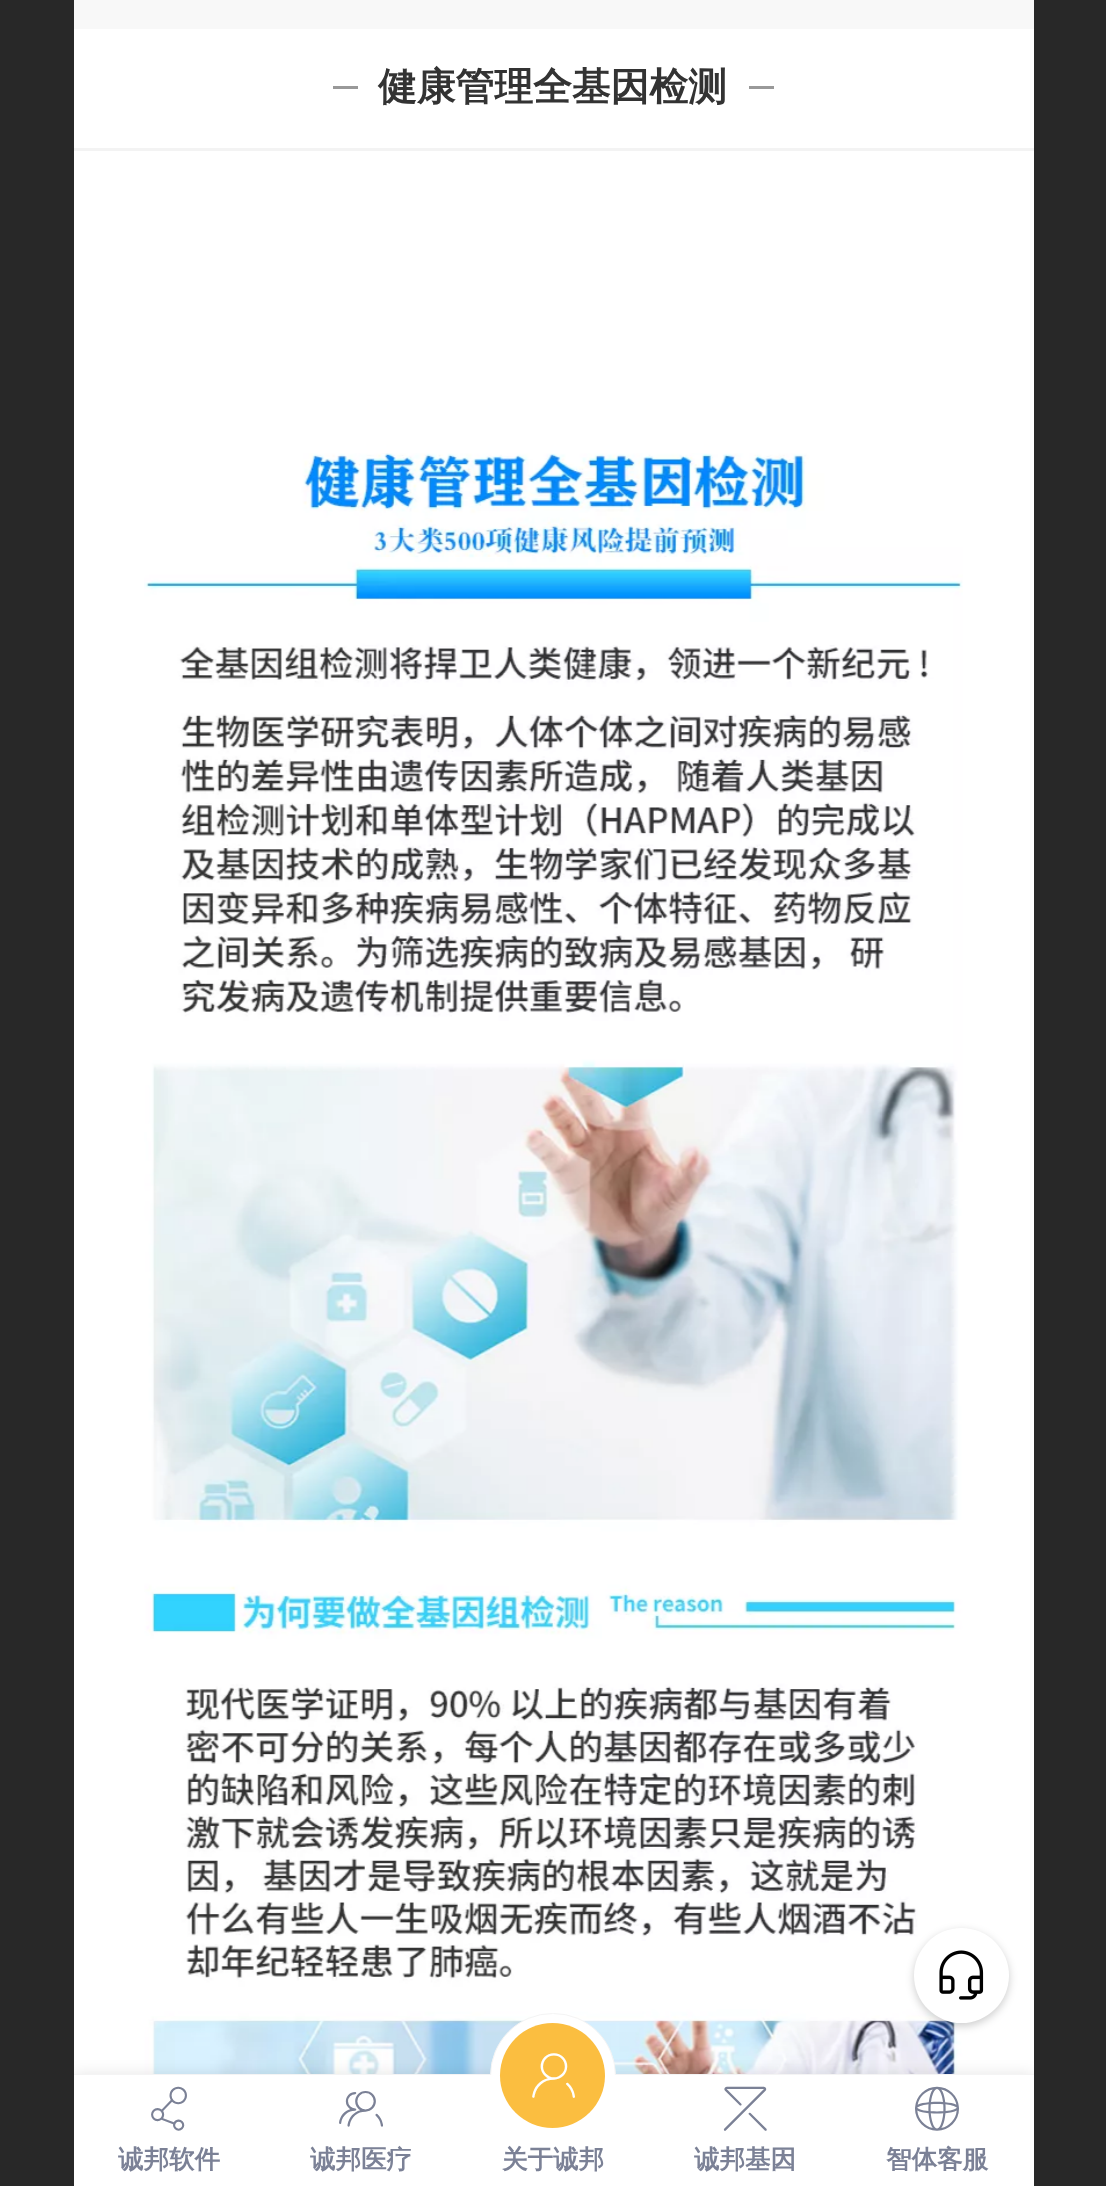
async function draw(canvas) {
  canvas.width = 1106
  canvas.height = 2186
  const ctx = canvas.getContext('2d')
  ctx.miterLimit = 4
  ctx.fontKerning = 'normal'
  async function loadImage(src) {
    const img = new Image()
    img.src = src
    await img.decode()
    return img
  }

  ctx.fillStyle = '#f8f8f8'
  ctx.fillRect(0, 0, 1106, 2186)
  ctx.fillStyle = '#fff'
  ctx.fillRect(74, 151, 960, 1923)
  ctx.drawImage(await loadImage('image0.png'), 144, 453, 819, 1621)
  ctx.fillStyle = '#0000001a'
  ctx.filter = 'blur(7.5px)'
  ctx.beginPath()
  ctx.rect(74, 2074, 960, 112)
  ctx.fill()
  ctx.filter = 'none'
  ctx.fillStyle = '#282828'
  ctx.fillRect(0, 0, 74, 2186)
  ctx.fillStyle = '#fff'
  ctx.fillRect(74, 29, 960, 119)
  ctx.fillStyle = '#f3f3f3'
  ctx.fillRect(74, 148, 960, 3)
  ctx.fillStyle = '#999'
  ctx.fillRect(333, 86, 25, 3)
  ctx.font = 'bold 38.75px WenQuanYi Zen Hei'
  ctx.fillStyle = '#333'
  ctx.fillText('健康管理全基因检测', 378, 100)
  ctx.fillStyle = '#999'
  ctx.fillRect(749, 86, 25, 3)
  ctx.fillStyle = '#00000033'
  ctx.filter = 'blur(4px)'
  ctx.beginPath()
  ctx.roundRect(914, 1931, 95, 95, 47.5)
  ctx.fill()
  ctx.filter = 'none'
  ctx.fillStyle = '#fff'
  ctx.beginPath()
  ctx.arc(961.5, 1975.5, 47.5, 0, 2 * Math.PI)
  ctx.fill()
  ctx.drawImage(await loadImage('image1.png'), 939, 1950, 45, 50)
  ctx.fillRect(74, 2075, 960, 111)
  ctx.fillStyle = '#f4f4f4'
  ctx.fillRect(74, 2074, 960, 1)
  ctx.font = '44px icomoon'
  ctx.fillStyle = '#7b8196'
  ctx.fillText('򠤃', 147, 2128)
  ctx.font = 'bold 25.5px WenQuanYi Zen Hei'
  ctx.fillText('诚邦软件', 118, 2168)
  ctx.font = '44px icomoon'
  ctx.fillText('򠍂', 339, 2128)
  ctx.font = 'bold 25.5px WenQuanYi Zen Hei'
  ctx.fillText('诚邦医疗', 310, 2168)
  ctx.fillStyle = '#fff'
  ctx.beginPath()
  ctx.roundRect(490.5, 2013.5, 125, 124, 62)
  ctx.fill()
  ctx.strokeStyle = '#f4f4f4'
  ctx.stroke()
  ctx.fillRect(490, 2075, 126, 63)
  ctx.fillStyle = '#fbbe40'
  ctx.beginPath()
  ctx.arc(552.5, 2075.5, 52.5, 0, 2 * Math.PI)
  ctx.fill()
  ctx.font = '47px icomoon'
  ctx.fillStyle = '#fff'
  ctx.fillText('򠌹', 530, 2096)
  ctx.font = 'bold 25.5px WenQuanYi Zen Hei'
  ctx.fillStyle = '#7b8196'
  ctx.fillText('关于诚邦', 502, 2168)
  ctx.font = '44px icomoon'
  ctx.fillText('򡀅', 723, 2128)
  ctx.font = 'bold 25.5px WenQuanYi Zen Hei'
  ctx.fillText('诚邦基因', 694, 2168)
  ctx.font = '44px icomoon'
  ctx.fillText('򠦐', 915, 2128)
  ctx.font = 'bold 25.5px WenQuanYi Zen Hei'
  ctx.fillText('智体客服', 886, 2168)
  ctx.fillStyle = '#282828'
  ctx.fillRect(1034, 0, 72, 2186)
}

draw(document.querySelector('canvas'))
